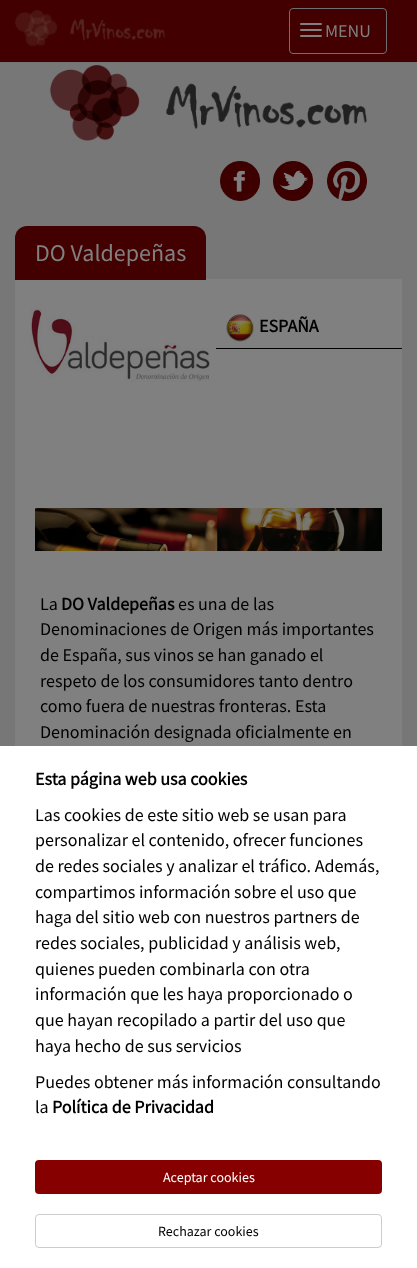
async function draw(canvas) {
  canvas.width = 417
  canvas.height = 1268
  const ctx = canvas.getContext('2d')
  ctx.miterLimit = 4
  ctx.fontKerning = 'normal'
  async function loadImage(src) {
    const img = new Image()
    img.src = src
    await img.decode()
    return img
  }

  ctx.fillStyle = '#777'
  ctx.fillRect(0, 0, 417, 1268)
  ctx.fillStyle = '#430000'
  ctx.fillRect(0, 0, 417, 62)
  ctx.fillStyle = '#747474'
  ctx.fillRect(0, 62, 417, 1)
  ctx.drawImage(await loadImage('image0.png'), 15, 10, 150, 37)
  ctx.beginPath()
  ctx.roundRect(289.5, 8.5, 97, 45, 3.5)
  ctx.strokeStyle = '#6f6f6f'
  ctx.stroke()
  ctx.fillStyle = '#808080'
  ctx.beginPath()
  ctx.roundRect(300, 23, 22, 2, 1)
  ctx.fill()
  ctx.beginPath()
  ctx.roundRect(300, 29, 22, 2, 1)
  ctx.fill()
  ctx.beginPath()
  ctx.roundRect(300, 35, 22, 2, 1)
  ctx.fill()
  ctx.font = '18px Source Sans Pro'
  ctx.fillText('MENU', 325, 37)
  ctx.drawImage(await loadImage('image1.png'), 50, 65, 317, 76)
  ctx.drawImage(await loadImage('image2.png'), 220, 161, 40, 40)
  ctx.drawImage(await loadImage('image3.png'), 273, 161, 40, 40)
  ctx.drawImage(await loadImage('image4.png'), 327, 161, 40, 40)
  ctx.fillRect(15, 279, 387, 467)
  ctx.fillStyle = '#430000'
  ctx.beginPath()
  ctx.roundRect(15, 226, 191, 54, [12, 12, 0, 0])
  ctx.fill()
  ctx.font = '24px Source Sans Pro'
  ctx.fillStyle = '#808080'
  ctx.fillText('DO Valdepeñas', 35, 261)
  ctx.drawImage(await loadImage('image5.png'), 30, 308, 180, 74)
  ctx.drawImage(await loadImage('image6.png'), 226, 314, 28, 28)
  ctx.font = 'bold 18px Source Sans Pro'
  ctx.fillStyle = '#000'
  ctx.fillText('ESPAÑA', 259, 332)
  ctx.fillRect(216, 348, 186, 1)
  ctx.drawImage(await loadImage('image7.png'), 35, 508, 347, 43)
  ctx.font = '18px Source Sans Pro'
  ctx.fillText('La', 40, 610)
  ctx.font = 'bold 18px Source Sans Pro'
  ctx.fillText('DO Valdepeñas', 61, 610)
  ctx.font = '18px Source Sans Pro'
  ctx.fillText('es una de las', 178, 610)
  ctx.fillText('Denominaciones de Origen más importantes', 40, 635)
  ctx.fillText('de España, sus vinos se han ganado el', 40, 661)
  ctx.fillText('respeto de los consumidores tanto dentro', 40, 687)
  ctx.fillText('como fuera de nuestras fronteras. Esta', 40, 712)
  ctx.fillText('Denominación designada oficialmente en', 40, 738)
  ctx.fillStyle = '#fff'
  ctx.fillRect(0, 746, 417, 522)
  ctx.font = 'bold 18px Source Sans Pro'
  ctx.fillStyle = '#000'
  ctx.fillText('Esta página web usa cookies', 35, 785)
  ctx.font = '18px Source Sans Pro'
  ctx.fillText('Las cookies de este sitio web se usan para', 35, 821)
  ctx.fillText('personalizar el contenido, ofrecer funciones', 35, 846)
  ctx.fillText('de redes sociales y analizar el tráfico. Además,', 35, 872)
  ctx.fillText('compartimos información sobre el uso que', 35, 898)
  ctx.fillText('haga del sitio web con nuestros partners de', 35, 923)
  ctx.fillText('redes sociales, publicidad y análisis web,', 35, 949)
  ctx.fillText('quienes pueden combinarla con otra', 35, 975)
  ctx.fillText('información que les haya proporcionado o', 35, 1000)
  ctx.fillText('que hayan recopilado a partir del uso que', 35, 1026)
  ctx.fillText('haya hecho de sus servicios', 35, 1052)
  ctx.fillText('Puedes obtener más información consultando', 35, 1088)
  ctx.fillText('la', 35, 1113)
  ctx.font = 'bold 18px Source Sans Pro'
  ctx.fillText('Política de Privacidad', 52, 1113)
  ctx.fillStyle = '#860000'
  ctx.beginPath()
  ctx.roundRect(35, 1160, 347, 34, 4)
  ctx.fill()
  ctx.font = '14px Source Sans Pro'
  ctx.fillStyle = '#fff'
  ctx.fillText('Aceptar cookies', 163, 1182)
  ctx.beginPath()
  ctx.roundRect(35.5, 1214.5, 346, 33, 3.5)
  ctx.strokeStyle = '#ccc'
  ctx.stroke()
  ctx.fillStyle = '#000'
  ctx.fillText('Rechazar cookies', 158, 1236)
}

draw(document.querySelector('canvas'))
